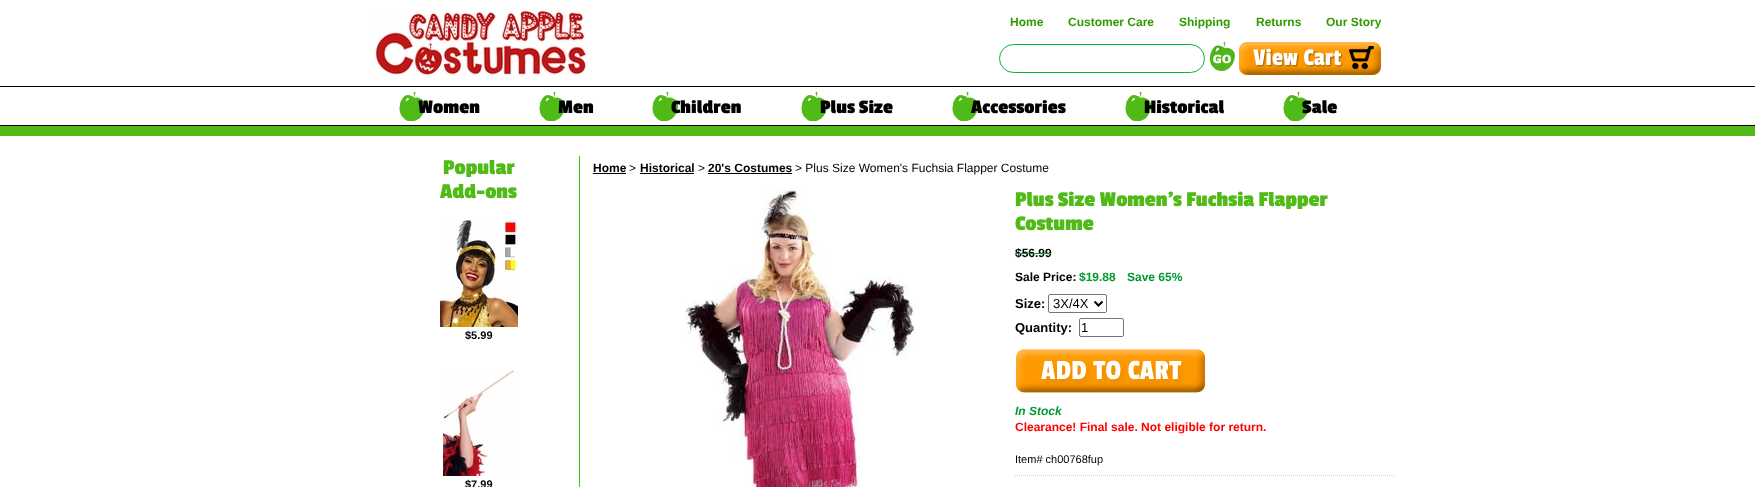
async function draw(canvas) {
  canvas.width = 1755
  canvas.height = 487
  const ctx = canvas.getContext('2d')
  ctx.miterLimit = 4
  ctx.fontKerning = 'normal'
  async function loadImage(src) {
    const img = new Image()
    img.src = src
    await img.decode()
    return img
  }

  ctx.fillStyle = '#fff'
  ctx.fillRect(0, 0, 1755, 487)
  ctx.drawImage(await loadImage('image0.png'), 375, 10, 212, 66)
  ctx.font = 'bold 12px Liberation Sans'
  ctx.fillStyle = '#319a00'
  ctx.fillText('Home', 1010, 26)
  ctx.fillText('Customer Care', 1068, 26)
  ctx.fillText('Shipping', 1179, 26)
  ctx.fillStyle = '#fff'
  ctx.fillRect(1154, 15, 1, 14)
  ctx.fillStyle = '#319a00'
  ctx.fillText('Returns', 1256, 26)
  ctx.fillText('Our Story', 1326, 26)
  ctx.beginPath()
  ctx.roundRect(999.5, 44.5, 205, 28, 14)
  ctx.strokeStyle = '#04b43c'
  ctx.stroke()
  ctx.drawImage(await loadImage('image1.png'), 1209, 41, 27, 30)
  ctx.drawImage(await loadImage('image2.png'), 1239, 42, 142, 33)
  ctx.fillStyle = '#000'
  ctx.fillRect(0, 86, 1755, 1)
  ctx.fillRect(0, 125, 1755, 1)
  ctx.drawImage(await loadImage('image3.png'), 399, 91, 27, 30)
  ctx.font = 'bold 20px Passion One'
  ctx.fillText('Women', 418, 113)
  ctx.drawImage(await loadImage('image3.png'), 539, 91, 27, 30)
  ctx.fillText('Men', 558, 113)
  ctx.drawImage(await loadImage('image3.png'), 652, 91, 27, 30)
  ctx.fillText('Children', 671, 113)
  ctx.drawImage(await loadImage('image3.png'), 801, 91, 27, 30)
  ctx.fillText('Plus Size', 820, 113)
  ctx.drawImage(await loadImage('image3.png'), 952, 91, 27, 30)
  ctx.fillText('Accessories', 971, 113)
  ctx.drawImage(await loadImage('image3.png'), 1125, 91, 27, 30)
  ctx.fillText('Historical', 1144, 113)
  ctx.drawImage(await loadImage('image3.png'), 1283, 91, 27, 30)
  ctx.fillText('Sale', 1302, 113)
  ctx.fillStyle = '#50ba17'
  ctx.fillRect(0, 126, 1755, 10)
  ctx.font = 'bold 22px Passion One'
  ctx.fillText('Popular', 443, 174)
  ctx.fillText('Add-ons', 440, 198)
  ctx.drawImage(await loadImage('image4.png'), 440, 220, 78, 107)
  ctx.font = 'bold 11px Liberation Sans'
  ctx.fillStyle = '#000'
  ctx.fillText('$5.99', 465, 339)
  ctx.drawImage(await loadImage('image5.png'), 443, 369, 71, 107)
  ctx.fillText('$7.99', 465, 488)
  ctx.fillStyle = '#3c0'
  ctx.fillRect(579, 156, 1, 331)
  ctx.font = 'bold 12px Liberation Sans'
  ctx.fillStyle = '#000'
  ctx.fillText('Home', 593, 172)
  ctx.fillRect(593, 173, 33, 1)
  ctx.font = '12px Liberation Sans'
  ctx.fillText('>', 629, 172)
  ctx.font = 'bold 12px Liberation Sans'
  ctx.fillText('Historical', 640, 172)
  ctx.fillRect(640, 173, 54, 1)
  ctx.font = '12px Liberation Sans'
  ctx.fillText('>', 698, 172)
  ctx.font = 'bold 12px Liberation Sans'
  ctx.fillText('20\'s Costumes', 708, 172)
  ctx.fillRect(708, 173, 84, 1)
  ctx.font = '12px Liberation Sans'
  ctx.fillText('> Plus Size Women\'s Fuchsia Flapper Costume', 795, 172)
  ctx.drawImage(await loadImage('image6.png'), 684, 188, 232, 299)
  ctx.font = 'bold 22px Passion One'
  ctx.fillStyle = '#50ba17'
  ctx.fillText('Plus Size Women\'s Fuchsia Flapper', 1015, 206)
  ctx.fillText('Costume', 1015, 230)
  ctx.font = 'bold 12px Liberation Sans'
  ctx.fillStyle = '#000'
  ctx.fillText('$56.99', 1015, 257)
  ctx.fillStyle = '#093'
  ctx.fillRect(1015, 253, 36, 1)
  ctx.fillStyle = '#000'
  ctx.fillText('Sale Price:', 1015, 281)
  ctx.fillStyle = '#093'
  ctx.fillText('$19.88', 1079, 281)
  ctx.fillText('Save 65%', 1127, 281)
  ctx.font = 'bold 13px Liberation Sans'
  ctx.fillStyle = '#000'
  ctx.fillText('Size:', 1015, 308)
  ctx.beginPath()
  ctx.roundRect(1048.5, 294.5, 58, 18, 1.5)
  ctx.strokeStyle = '#767676'
  ctx.stroke()
  ctx.beginPath()
  ctx.moveTo(1094.5, 301.5)
  ctx.lineTo(1098.5, 305.5)
  ctx.lineTo(1102.5, 301.5)
  ctx.strokeStyle = '#000'
  ctx.lineWidth = 2
  ctx.stroke()
  ctx.font = '13px Liberation Sans'
  ctx.fillText('3X/4X', 1053, 308)
  ctx.font = 'bold 13px Liberation Sans'
  ctx.fillText('Quantity:', 1015, 332)
  ctx.beginPath()
  ctx.roundRect(1079.5, 318.5, 44, 18, 1.5)
  ctx.strokeStyle = '#767676'
  ctx.lineWidth = 1
  ctx.stroke()
  ctx.font = '13px Liberation Sans'
  ctx.fillText('1', 1081, 332)
  ctx.drawImage(await loadImage('image7.png'), 1016, 349, 189, 44)
  ctx.font = 'italic bold 12px Liberation Sans'
  ctx.fillStyle = '#093'
  ctx.fillText('In Stock', 1015, 415)
  ctx.font = 'bold 12px Liberation Sans'
  ctx.fillStyle = '#f00'
  ctx.fillText('Clearance! Final sale. Not eligible for return.', 1015, 431)
  ctx.beginPath()
  ctx.moveTo(1015, 475.5)
  ctx.lineTo(1395, 475.5)
  ctx.strokeStyle = '#ccc'
  ctx.setLineDash([1, 1])
  ctx.stroke()
  ctx.font = '11px Liberation Sans'
  ctx.fillStyle = '#000'
  ctx.fillText('Item# ch00768fup', 1015, 463)
}

draw(document.querySelector('canvas'))
